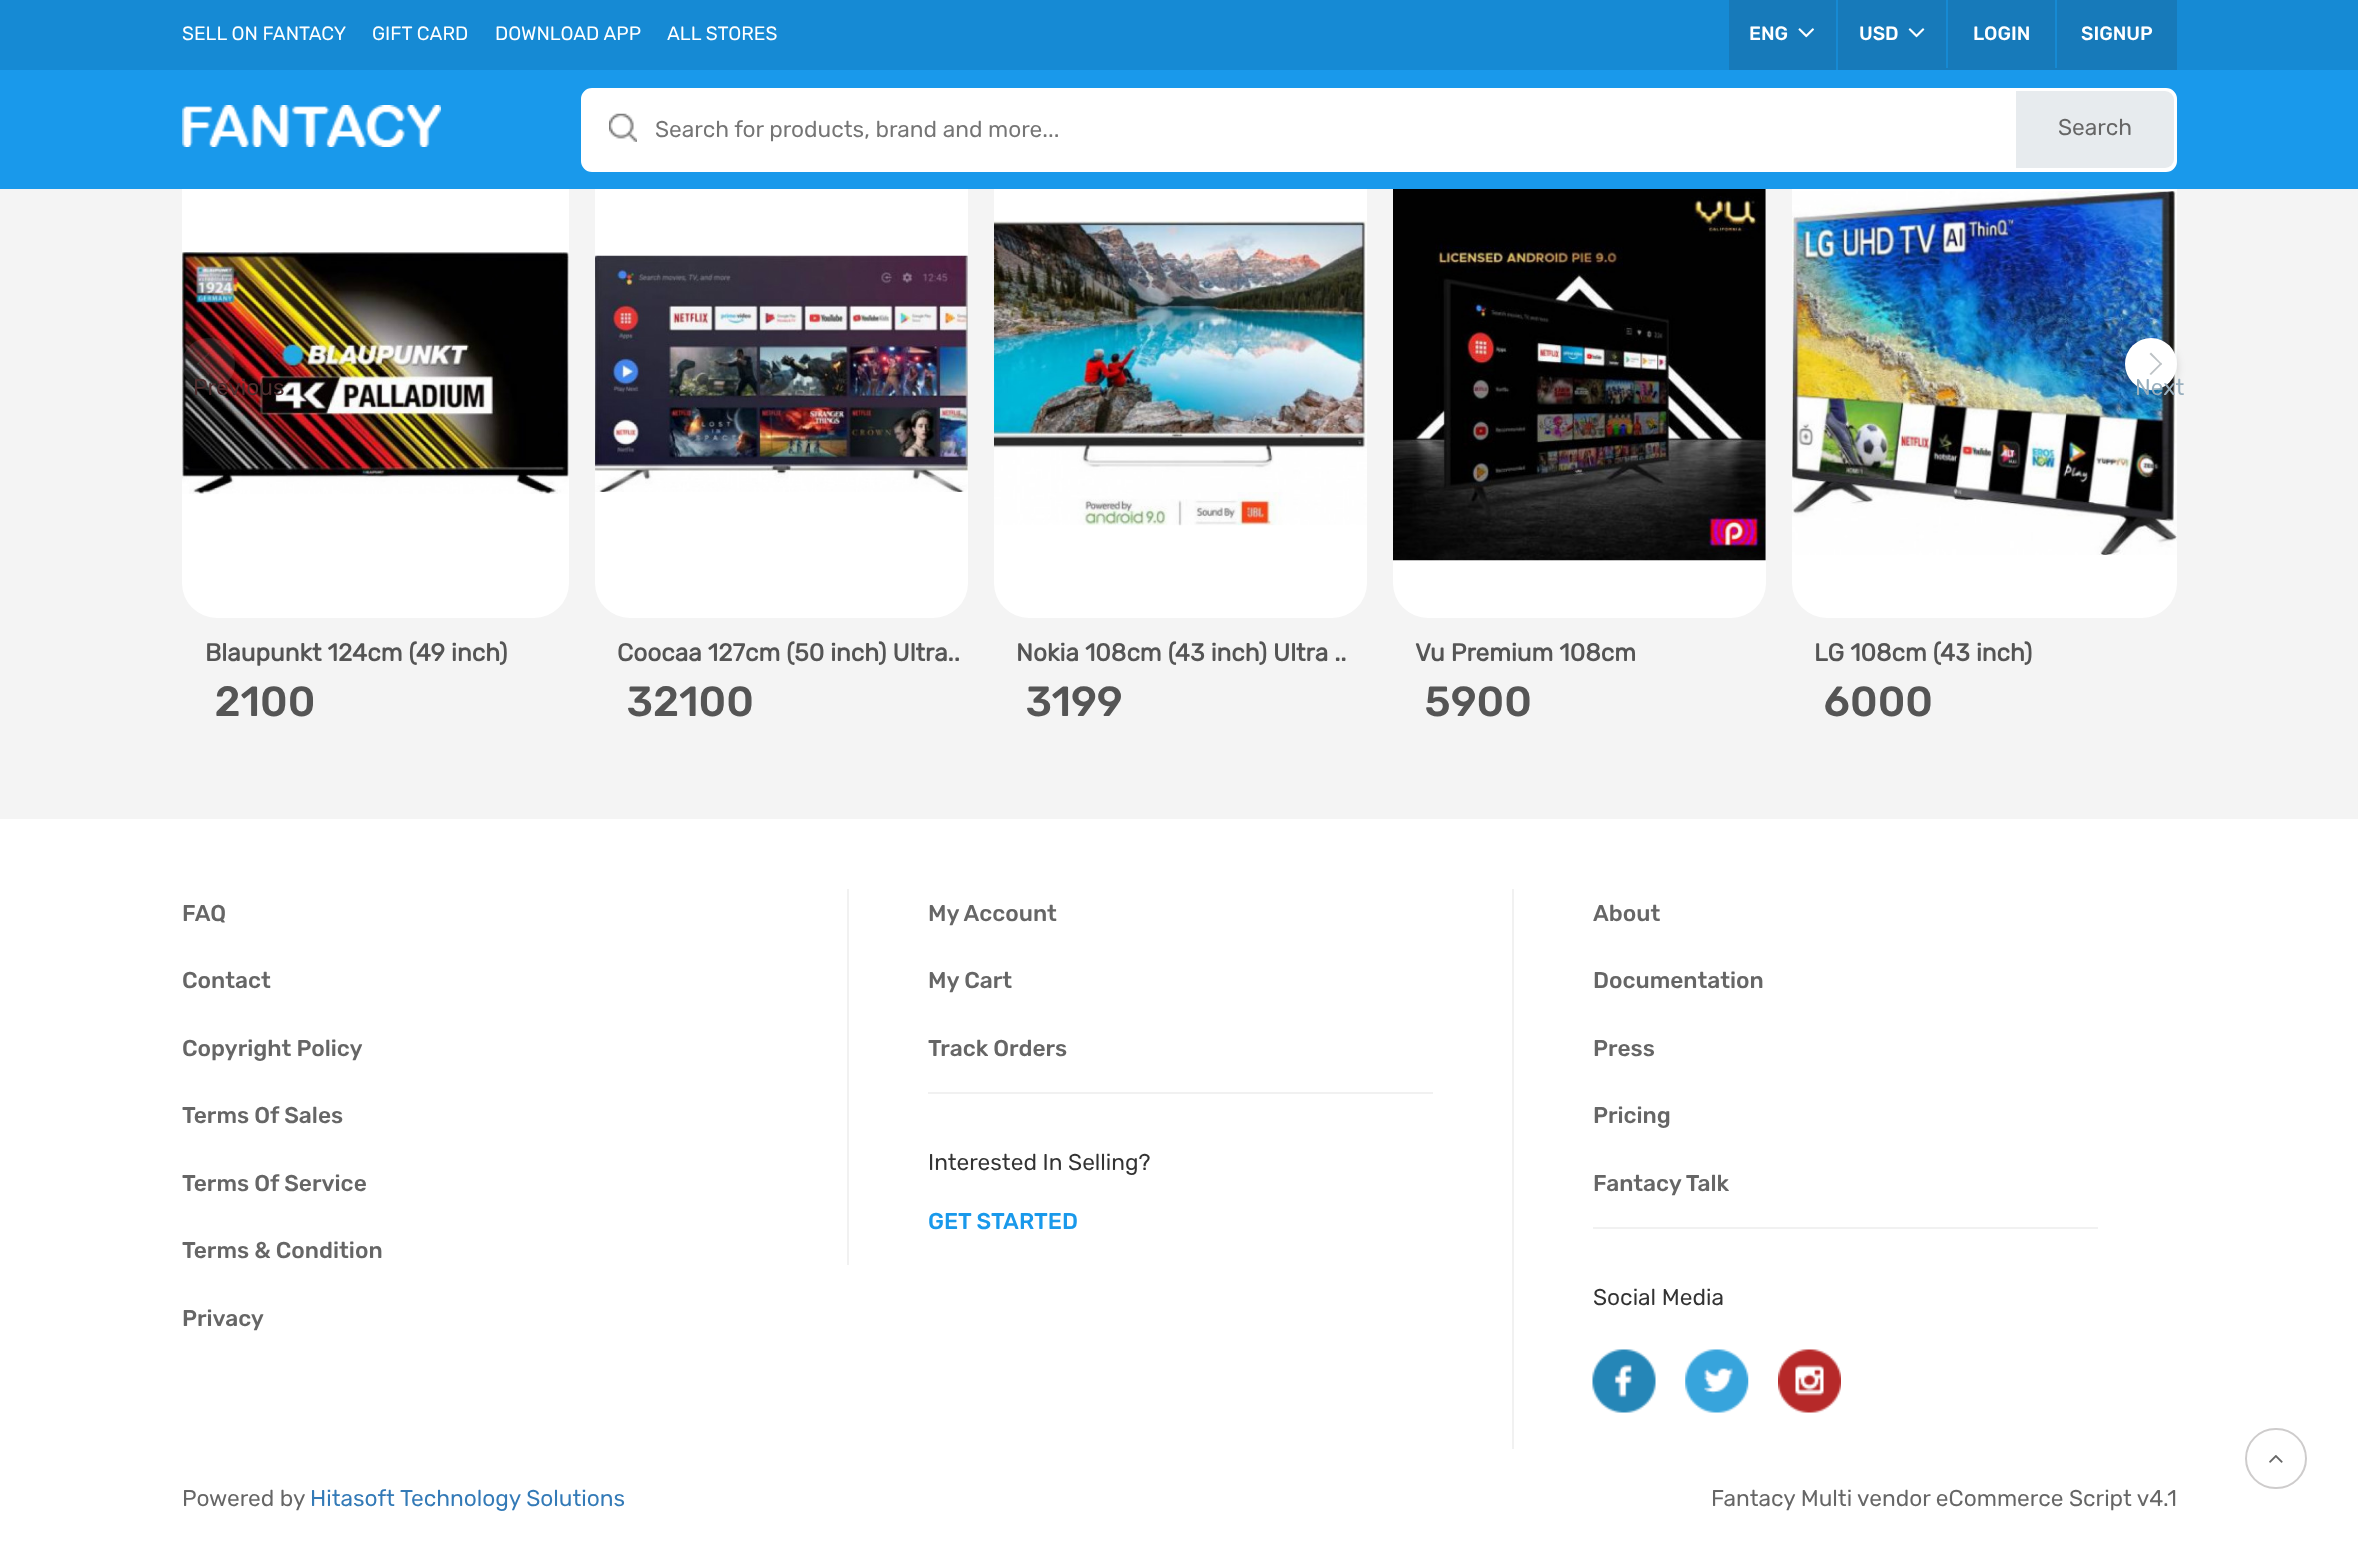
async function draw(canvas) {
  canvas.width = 2358
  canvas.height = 1549
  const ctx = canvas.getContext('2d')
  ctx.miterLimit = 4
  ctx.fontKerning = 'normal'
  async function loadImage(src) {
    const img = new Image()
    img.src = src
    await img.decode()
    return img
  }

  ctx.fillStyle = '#f4f4f4'
  ctx.fillRect(0, 0, 2358, 1549)
  ctx.fillStyle = '#168ad4'
  ctx.fillRect(0, 0, 2358, 70)
  ctx.font = '19.25px Rubik'
  ctx.fillStyle = '#fff'
  ctx.fillText('SELL ON FANTACY', 182, 40)
  ctx.fillText('GIFT CARD', 372, 40)
  ctx.fillText('DOWNLOAD APP', 495, 40)
  ctx.fillText('ALL STORES', 667, 40)
  ctx.fillStyle = '#177aba'
  ctx.fillRect(1729, 0, 448, 70)
  ctx.font = '500 19.25px Rubik'
  ctx.fillStyle = '#fff'
  ctx.fillText('ENG', 1749, 40)
  ctx.drawImage(await loadImage('image0.png'), 1798, 28, 16, 10)
  ctx.fillStyle = '#168ad4'
  ctx.fillRect(1836, 0, 2, 70)
  ctx.fillStyle = '#fff'
  ctx.fillText('USD', 1859, 40)
  ctx.drawImage(await loadImage('image1.png'), 1908, 28, 17, 10)
  ctx.fillStyle = '#168ad4'
  ctx.fillRect(1946, 0, 2, 68)
  ctx.fillStyle = '#fff'
  ctx.fillText('LOGIN', 1973, 40)
  ctx.fillStyle = '#168ad4'
  ctx.fillRect(2055, 0, 2, 68)
  ctx.fillStyle = '#fff'
  ctx.fillText('SIGNUP', 2081, 40)
  ctx.beginPath()
  ctx.roundRect(182, 128, 387, 490, 35)
  ctx.fill()
  ctx.beginPath()
  ctx.roundRect(595, 128, 373, 490, 35)
  ctx.fill()
  ctx.beginPath()
  ctx.roundRect(994, 128, 373, 490, 35)
  ctx.fill()
  ctx.beginPath()
  ctx.roundRect(1393, 128, 373, 490, 35)
  ctx.fill()
  ctx.beginPath()
  ctx.roundRect(1792, 128, 385, 490, 35)
  ctx.fill()
  ctx.fillStyle = '#1999eb'
  ctx.fillRect(0, 70, 2358, 119)
  ctx.drawImage(await loadImage('image2.png'), 182, 105, 259, 42)
  ctx.fillStyle = '#fff'
  ctx.beginPath()
  ctx.roundRect(583, 90, 1592, 80, 9)
  ctx.fill()
  ctx.strokeStyle = '#fff'
  ctx.lineWidth = 4
  ctx.stroke()
  ctx.drawImage(await loadImage('image3.png'), 609, 113, 28, 29)
  ctx.font = '22.75px Rubik'
  ctx.fillStyle = '#757575'
  ctx.fillText('Search for products, brand and more...', 655, 137)
  ctx.fillStyle = '#e7ebee'
  ctx.beginPath()
  ctx.roundRect(2016, 91, 158, 77, [0, 9, 9, 0])
  ctx.fill()
  ctx.fillStyle = '#666'
  ctx.fillText('Search', 2058, 135)
  ctx.drawImage(await loadImage('image4.png'), 182, 252, 387, 242)
  ctx.fillStyle = '#ffffff1a'
  ctx.beginPath()
  ctx.roundRect(182, 338, 53, 52, 26)
  ctx.fill()
  ctx.fillStyle = '#bdc2c51a'
  ctx.beginPath()
  ctx.moveTo(208.5, 375)
  ctx.lineTo(197, 364)
  ctx.lineTo(198, 362.5)
  ctx.lineTo(209.5, 374)
  ctx.closePath()
  ctx.fill()
  ctx.beginPath()
  ctx.moveTo(198, 365)
  ctx.lineTo(197, 364)
  ctx.lineTo(208.5, 352.5)
  ctx.lineTo(209.5, 354)
  ctx.closePath()
  ctx.fill()
  ctx.fillStyle = '#4d2e2f'
  ctx.fillText('Previous', 193, 395)
  ctx.drawImage(await loadImage('image8.png'), 1792, 191, 385, 364)
  ctx.fillStyle = '#00000026'
  ctx.filter = 'blur(4px)'
  ctx.beginPath()
  ctx.roundRect(2125, 341, 52, 53, 26)
  ctx.fill()
  ctx.filter = 'none'
  ctx.fillStyle = '#fff'
  ctx.beginPath()
  ctx.arc(2151, 364, 26, 0, 2 * Math.PI)
  ctx.fill()
  ctx.fillStyle = '#bdc2c5'
  ctx.beginPath()
  ctx.moveTo(2151, 352.5)
  ctx.lineTo(2162, 364)
  ctx.lineTo(2161, 365)
  ctx.lineTo(2149.5, 354)
  ctx.closePath()
  ctx.fill()
  ctx.beginPath()
  ctx.moveTo(2161, 362.5)
  ctx.lineTo(2162, 364)
  ctx.lineTo(2151, 375)
  ctx.lineTo(2149.5, 374)
  ctx.closePath()
  ctx.fill()
  ctx.fillStyle = '#99afbe'
  ctx.fillText('Next', 2135, 395)
  ctx.font = 'bold 24.5px Rubik'
  ctx.fillStyle = '#555'
  ctx.fillText('Blaupunkt 124cm (49 inch)', 205, 661)
  ctx.font = '500 42px Rubik'
  ctx.fillText(' 2100', 205, 716)
  ctx.drawImage(await loadImage('image5.png'), 595, 255, 373, 237)
  ctx.font = 'bold 24.5px Rubik'
  ctx.fillText('Coocaa 127cm (50 inch) Ultra..', 617, 661)
  ctx.font = '500 42px Rubik'
  ctx.fillText(' 32100', 617, 716)
  ctx.drawImage(await loadImage('image6.png'), 994, 220, 373, 306)
  ctx.font = 'bold 24.5px Rubik'
  ctx.fillText('Nokia 108cm (43 inch) Ultra ..', 1016, 661)
  ctx.font = '500 42px Rubik'
  ctx.fillText(' 3199', 1016, 716)
  ctx.drawImage(await loadImage('image7.png'), 1393, 189, 373, 372)
  ctx.font = 'bold 24.5px Rubik'
  ctx.fillText('Vu Premium 108cm', 1415, 661)
  ctx.font = '500 42px Rubik'
  ctx.fillText(' 5900', 1415, 716)
  ctx.font = 'bold 24.5px Rubik'
  ctx.fillText('LG 108cm (43 inch)', 1814, 661)
  ctx.font = '500 42px Rubik'
  ctx.fillText(' 6000', 1814, 716)
  ctx.fillStyle = '#fff'
  ctx.fillRect(0, 819, 2358, 730)
  ctx.font = '500 22.75px Rubik'
  ctx.fillStyle = '#666'
  ctx.fillText('FAQ', 182, 921)
  ctx.fillText('Contact', 182, 988)
  ctx.fillText('Copyright Policy', 182, 1056)
  ctx.fillText('Terms Of Sales', 182, 1123)
  ctx.fillText('Terms Of Service', 182, 1191)
  ctx.fillText('Terms & Condition', 182, 1258)
  ctx.fillText('Privacy', 182, 1326)
  ctx.fillStyle = '#f1f1f1'
  ctx.fillRect(847, 889, 2, 376)
  ctx.fillStyle = '#666'
  ctx.fillText('My Account', 928, 921)
  ctx.fillText('My Cart', 928, 988)
  ctx.fillText('Track Orders', 928, 1056)
  ctx.fillStyle = '#f1f1f1'
  ctx.fillRect(928, 1092, 505, 2)
  ctx.font = '22.75px Rubik'
  ctx.fillStyle = '#333'
  ctx.fillText('Interested In Selling?', 928, 1170)
  ctx.font = '500 22.75px Rubik'
  ctx.fillStyle = '#1999eb'
  ctx.fillText('GET STARTED', 928, 1229)
  ctx.fillStyle = '#f1f1f1'
  ctx.fillRect(1512, 889, 2, 560)
  ctx.fillStyle = '#666'
  ctx.fillText('About', 1593, 921)
  ctx.fillText('Documentation', 1593, 988)
  ctx.fillText('Press', 1593, 1056)
  ctx.fillText('Pricing', 1593, 1123)
  ctx.fillText('Fantacy Talk', 1593, 1191)
  ctx.fillStyle = '#f1f1f1'
  ctx.fillRect(1593, 1227, 505, 2)
  ctx.font = '22.75px Rubik'
  ctx.fillStyle = '#333'
  ctx.fillText('Social Media', 1593, 1305)
  ctx.drawImage(await loadImage('image9.png'), 1592, 1349, 64, 64)
  ctx.drawImage(await loadImage('image10.png'), 1685, 1349, 64, 64)
  ctx.drawImage(await loadImage('image11.png'), 1778, 1349, 63, 64)
  ctx.fillStyle = '#666'
  ctx.fillText('Powered by', 182, 1506)
  ctx.fillStyle = '#337ab7'
  ctx.fillText('Hitasoft Technology Solutions', 310, 1506)
  ctx.fillStyle = '#666'
  ctx.fillText('Fantacy Multi vendor eCommerce Script v4.1', 1711, 1506)
  ctx.beginPath()
  ctx.roundRect(2246, 1429, 60, 59, 29.5)
  ctx.strokeStyle = '#cecccc'
  ctx.lineWidth = 2
  ctx.stroke()
  ctx.drawImage(await loadImage('image12.png'), 2269, 1455, 14, 8)
}

draw(document.querySelector('canvas'))
